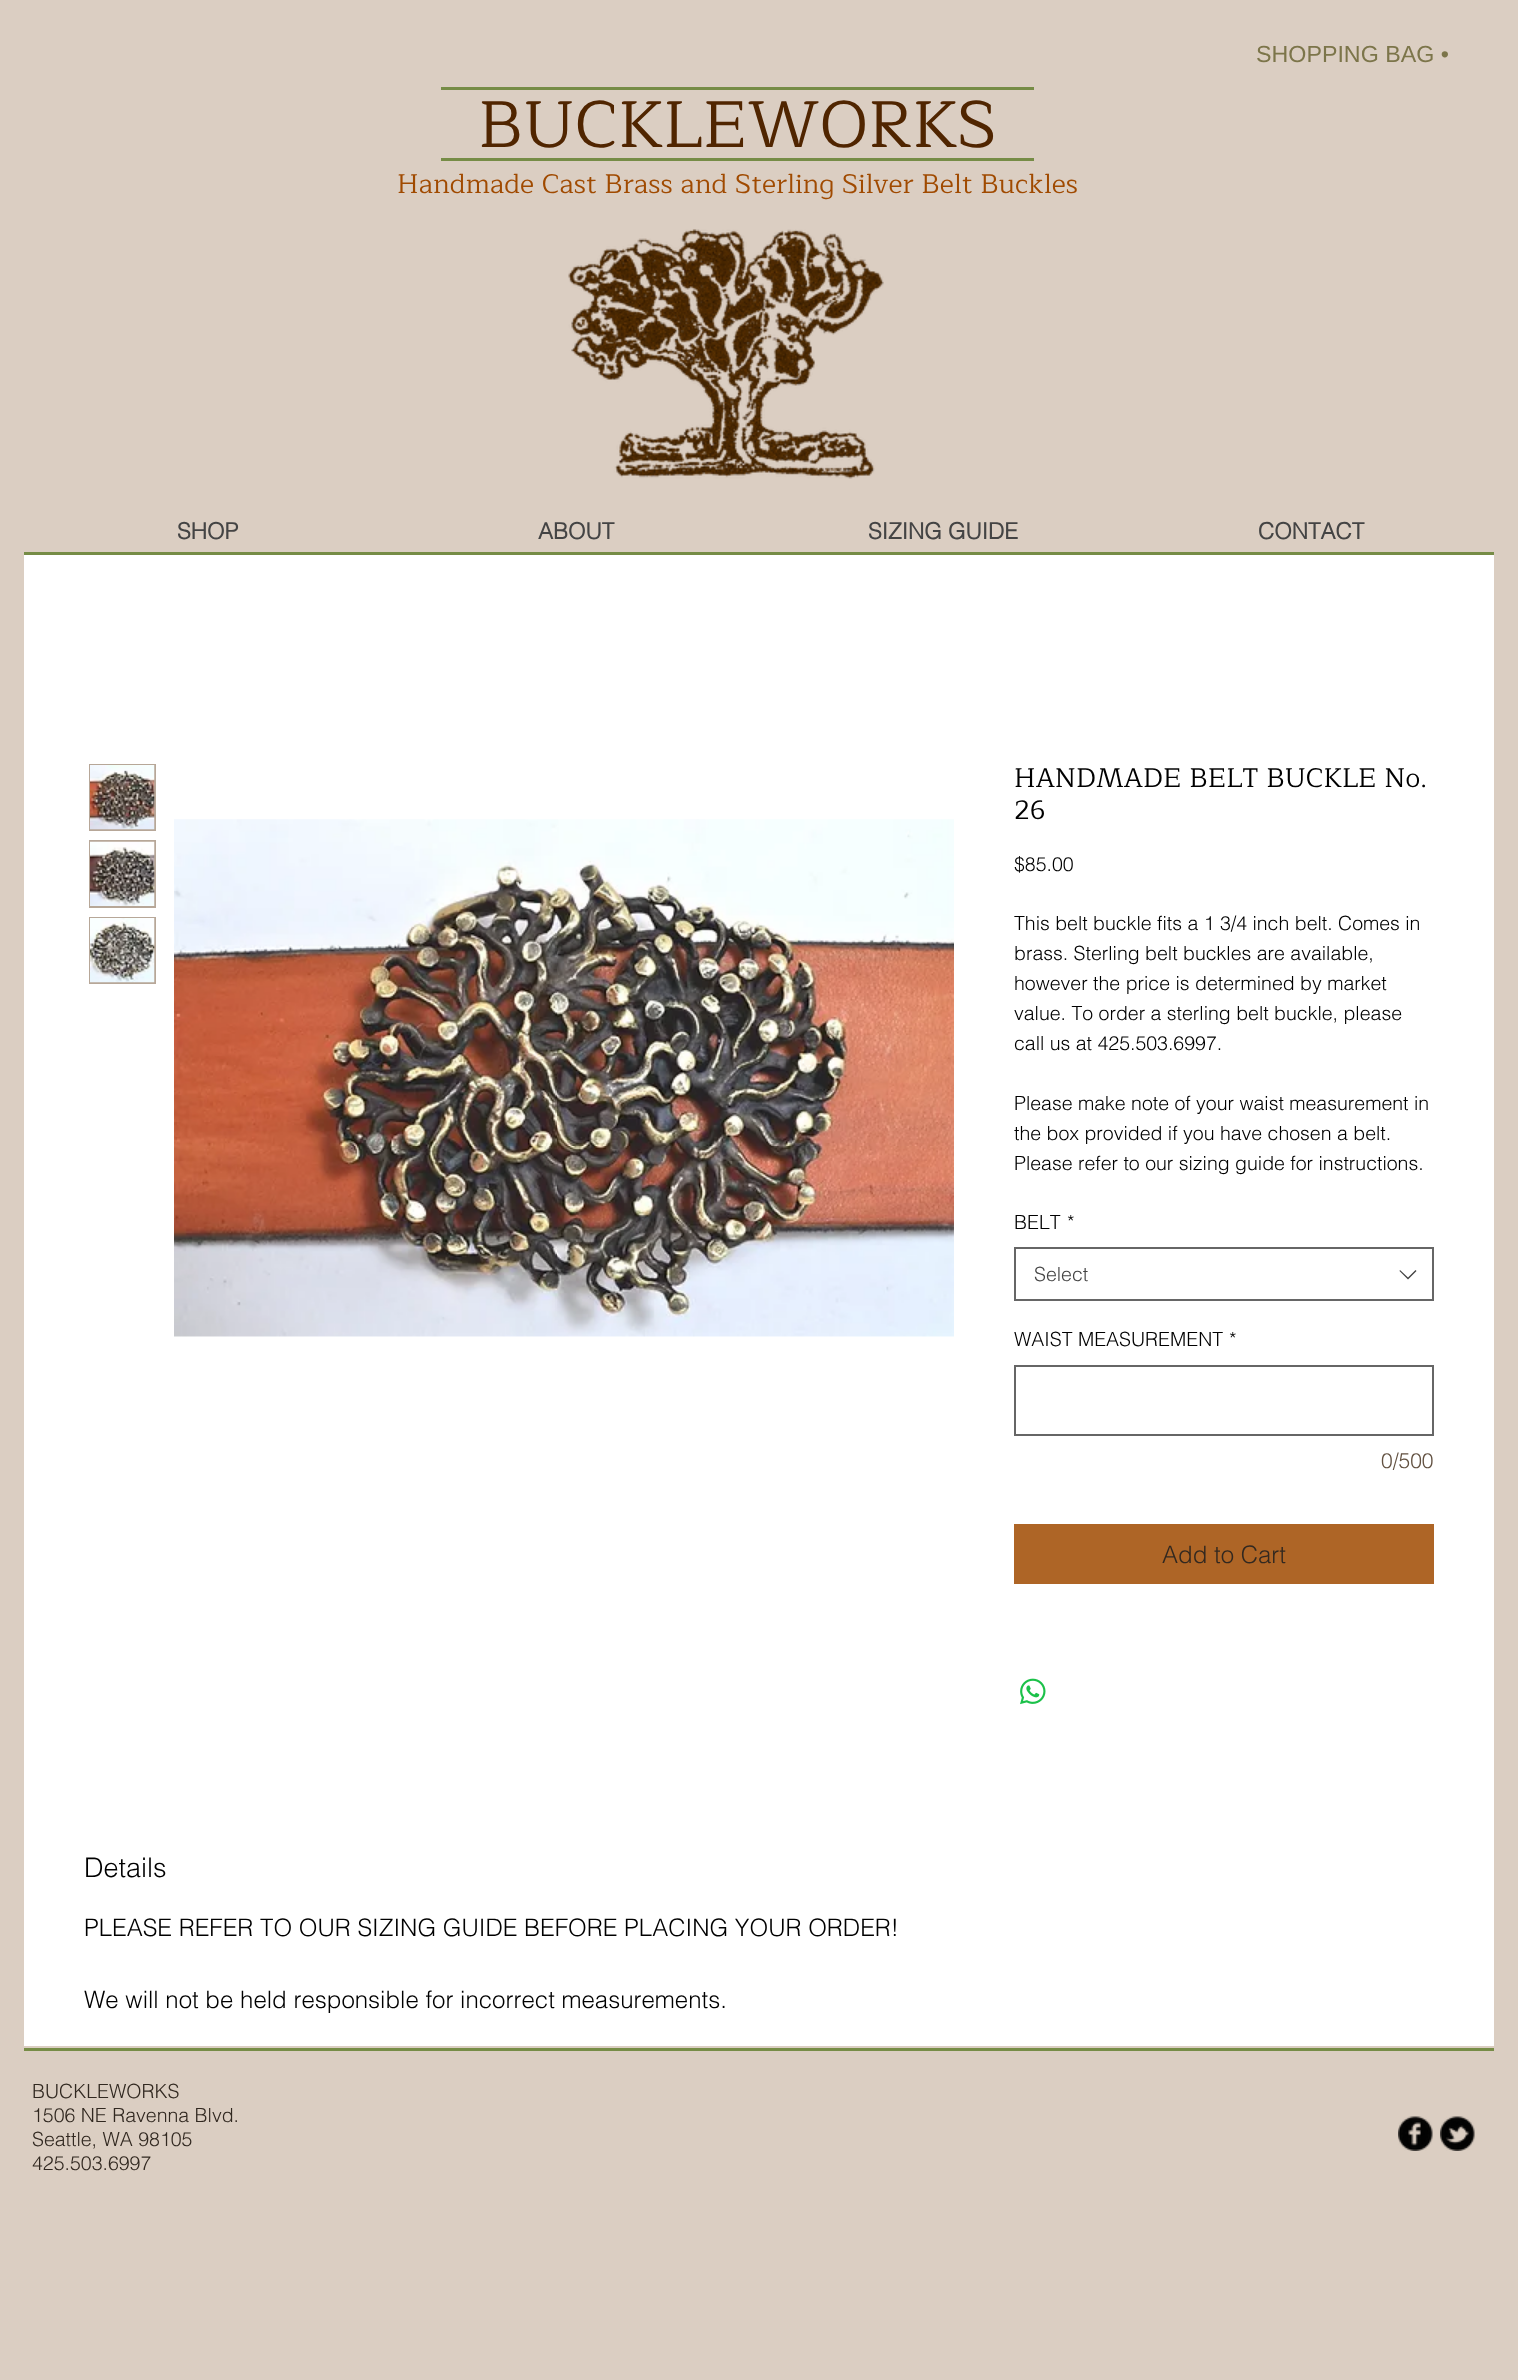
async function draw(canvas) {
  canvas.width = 1518
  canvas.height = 2380
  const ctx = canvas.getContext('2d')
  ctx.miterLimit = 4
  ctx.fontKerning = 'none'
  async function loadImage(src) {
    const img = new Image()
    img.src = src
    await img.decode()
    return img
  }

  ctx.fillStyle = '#dbcec2'
  ctx.fillRect(0, 0, 1518, 2380)
  ctx.font = '23.25px Liberation Sans'
  ctx.fillStyle = '#7c754a'
  ctx.fillText('SHOPPING BAG •', 1256, 62)
  ctx.fillStyle = '#768c46'
  ctx.fillRect(441, 87, 593, 3)
  ctx.font = '66px Maitree'
  ctx.fillStyle = '#502500'
  ctx.fillText('BUCKLEWORKS', 478, 147)
  ctx.fillStyle = '#768c46'
  ctx.fillRect(441, 158, 593, 3)
  ctx.font = '27px Maitree'
  ctx.fillStyle = '#a04a00'
  ctx.fillText('Handmade Cast Brass and Sterling Silver Belt Buckles', 397, 193)
  ctx.fillText('', 1078, 193)
  ctx.drawImage(await loadImage('image0.png'), 568, 229, 316, 250)
  ctx.font = 'bold 22.5px helvetica'
  ctx.fillStyle = '#444'
  ctx.fillText('SHOP', 177, 539)
  ctx.fillText('ABOUT', 538, 539)
  ctx.fillText('SIZING GUIDE', 868, 539)
  ctx.fillText('CONTACT', 1258, 539)
  ctx.fillStyle = '#768c46'
  ctx.fillRect(24, 552, 1470, 3)
  ctx.fillStyle = '#fff'
  ctx.fillRect(24, 555, 1470, 1491)
  ctx.fillStyle = '#b7a798'
  ctx.fillRect(89, 764, 67, 67)
  ctx.drawImage(await loadImage('image1.png'), 90, 765, 65, 65)
  ctx.fillRect(89, 840, 67, 68)
  ctx.drawImage(await loadImage('image2.png'), 90, 841, 65, 65)
  ctx.fillRect(89, 917, 67, 67)
  ctx.drawImage(await loadImage('image3.png'), 90, 918, 65, 65)
  ctx.drawImage(await loadImage('image4.png'), 174, 819, 780, 518)
  ctx.font = '27px Maitree'
  ctx.fillStyle = '#000'
  ctx.fillText('HANDMADE BELT BUCKLE No.', 1014, 787)
  ctx.fillText('26', 1014, 819)
  ctx.font = '300 19.5px helvetica'
  ctx.fillText('$85.00', 1014, 871)
  ctx.fillText('This belt buckle fits a 1 3/4 inch belt. Comes in', 1014, 930)
  ctx.fillText('brass. Sterling belt buckles are available,', 1014, 960)
  ctx.fillText('however the price is determined by market', 1014, 990)
  ctx.fillText('value. To order a sterling belt buckle, please', 1014, 1020)
  ctx.fillText('call us at 425.503.6997.', 1014, 1050)
  ctx.fillText('Please make note of your waist measurement in', 1014, 1110)
  ctx.fillText('the box provided if you have chosen a belt.', 1014, 1140)
  ctx.fillText('Please refer to our sizing guide for instructions.', 1014, 1170)
  ctx.fillText('BELT', 1014, 1229)
  ctx.fillText('*', 1067, 1229)
  ctx.strokeStyle = '#666'
  ctx.lineWidth = 2
  ctx.strokeRect(1015, 1248, 418, 52)
  ctx.fillStyle = '#444'
  ctx.fillText('Select', 1034, 1281)
  ctx.beginPath()
  ctx.moveTo(1415.5, 1270)
  ctx.lineTo(1416.5, 1271)
  ctx.lineTo(1408, 1279.5)
  ctx.lineTo(1399.5, 1271)
  ctx.lineTo(1400, 1270)
  ctx.lineTo(1408, 1277.5)
  ctx.closePath()
  ctx.fill('evenodd')
  ctx.fillStyle = '#000'
  ctx.fillText('WAIST MEASUREMENT', 1014, 1346)
  ctx.fillText('*', 1229, 1346)
  ctx.strokeRect(1015, 1366, 418, 69)
  ctx.font = '300 21px helvetica'
  ctx.fillStyle = '#625141'
  ctx.fillText('0/500', 1381, 1468)
  ctx.fillStyle = '#ae6526'
  ctx.fillRect(1014, 1524, 420, 60)
  ctx.font = '300 24px helvetica'
  ctx.fillStyle = '#312820'
  ctx.fillText('Add to Cart', 1162, 1563)
  ctx.drawImage(await loadImage('image5.png'), 1020, 1678, 26, 27)
  ctx.font = '300 27px helvetica'
  ctx.fillStyle = '#000'
  ctx.fillText('Details', 84, 1877)
  ctx.font = '300 24px helvetica'
  ctx.fillText('PLEASE REFER TO OUR SIZING GUIDE BEFORE PLACING YOUR ORDER!', 84, 1936)
  ctx.fillText('We will not be held responsible for incorrect measurements.', 84, 2008)
  ctx.fillStyle = '#768c46'
  ctx.fillRect(24, 2048, 1470, 3)
  ctx.font = '300 19.5px helvetica'
  ctx.fillStyle = '#312820'
  ctx.fillText('BUCKLEWORKS', 32, 2098)
  ctx.fillText('1506 NE Ravenna Blvd.', 32, 2122)
  ctx.fillText('Seattle, WA 98105', 32, 2146)
  ctx.fillText('425.503.6997', 32, 2170)
  ctx.drawImage(await loadImage('image6.png'), 1398, 2116, 35, 35)
  ctx.drawImage(await loadImage('image7.png'), 1440, 2116, 35, 35)
}

draw(document.querySelector('canvas'))
